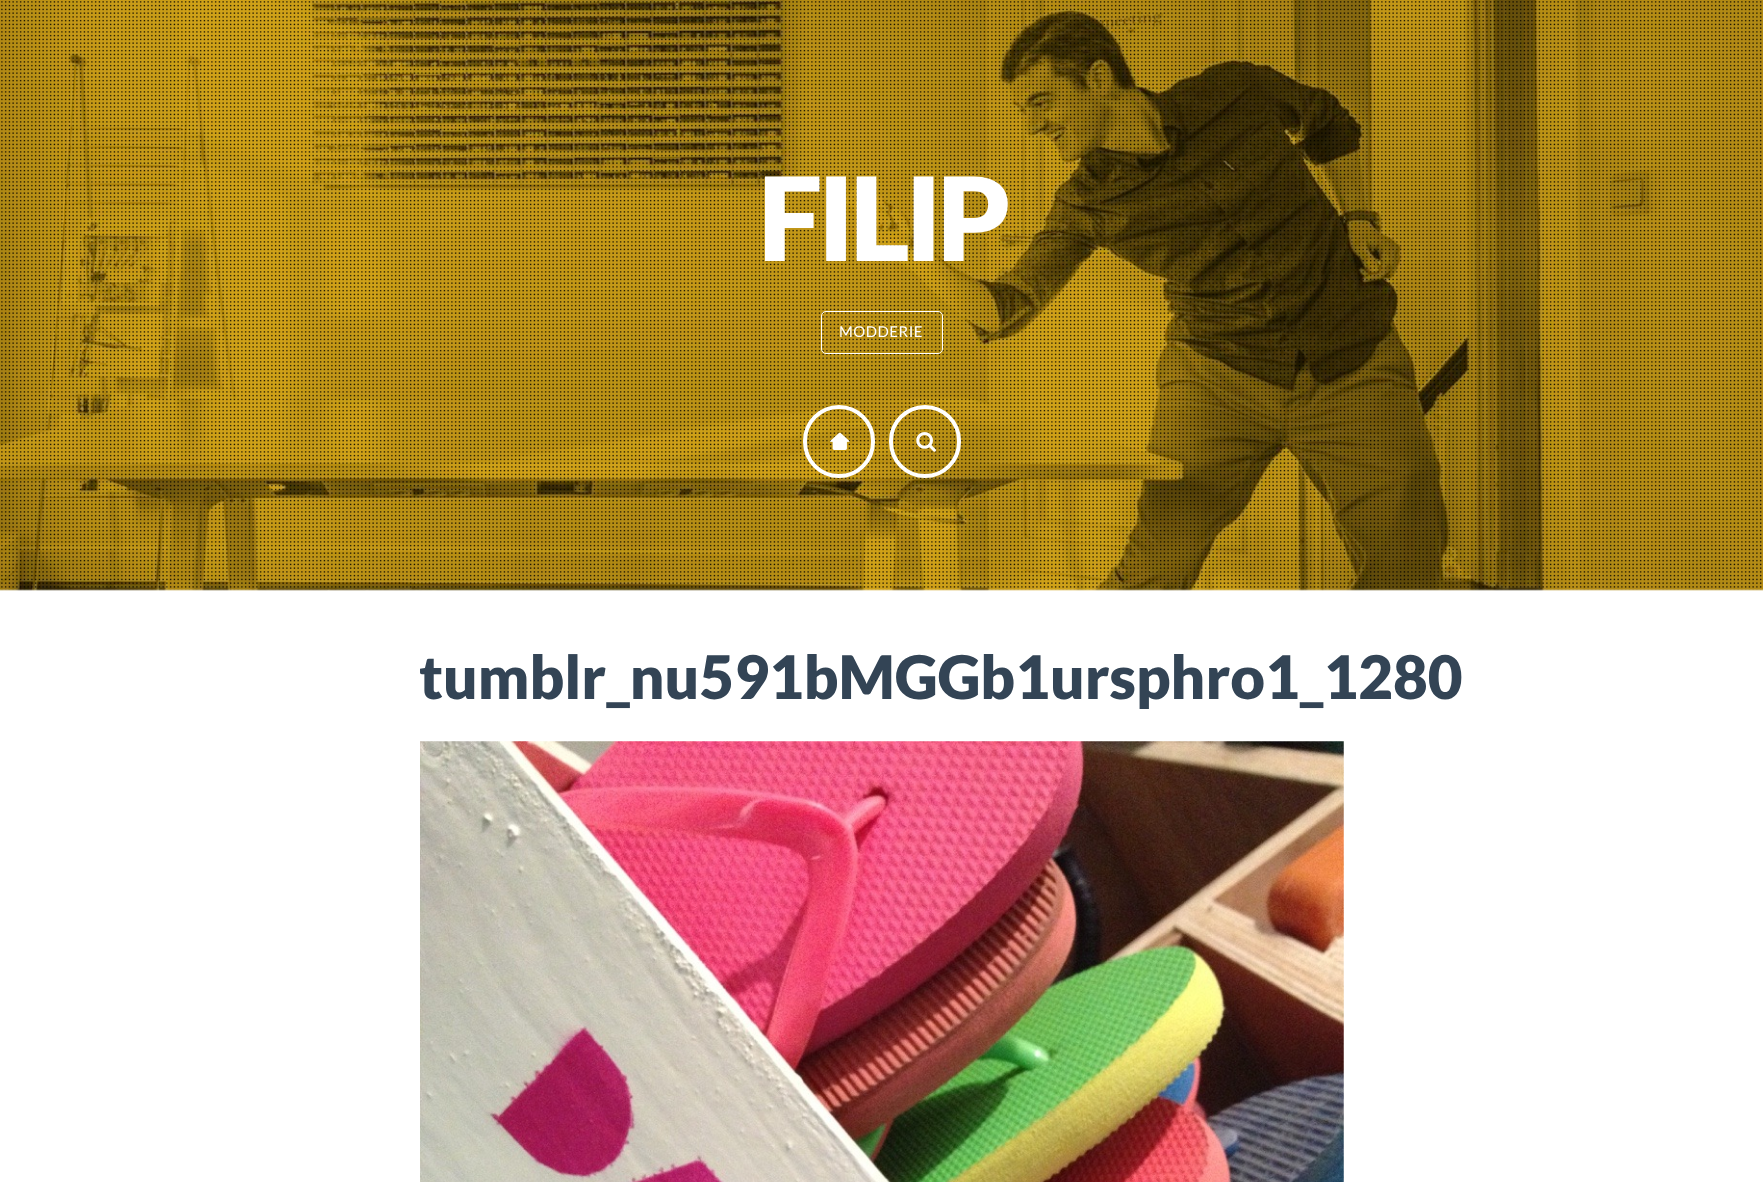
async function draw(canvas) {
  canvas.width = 1763
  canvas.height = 1182
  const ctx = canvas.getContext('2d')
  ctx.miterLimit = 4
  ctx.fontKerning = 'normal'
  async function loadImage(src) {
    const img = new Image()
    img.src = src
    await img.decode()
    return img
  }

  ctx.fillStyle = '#fff'
  ctx.fillRect(0, 0, 1763, 1182)
  ctx.drawImage(await loadImage('image0.png'), 0, 0, 1763, 591)
  ctx.drawImage(await loadImage('image1.png'), 1, 1, 1761, 589)
  ctx.letterSpacing = '-5px'
  ctx.font = '900 116px Lato'
  ctx.fillText('FILIP', 758, 261)
  ctx.beginPath()
  ctx.roundRect(821.5, 311.5, 121, 42, 4.5)
  ctx.strokeStyle = '#fff'
  ctx.stroke()
  ctx.letterSpacing = '0.5px'
  ctx.font = '15px Lato'
  ctx.fillText('MODDERIE', 839, 337)
  ctx.beginPath()
  ctx.roundRect(805, 407, 68, 69, 34)
  ctx.lineWidth = 4
  ctx.stroke()
  ctx.drawImage(await loadImage('image2.png'), 830, 432, 20, 18)
  ctx.beginPath()
  ctx.roundRect(891, 407, 68, 69, 34)
  ctx.stroke()
  ctx.drawImage(await loadImage('image3.png'), 916, 432, 20, 20)
  ctx.letterSpacing = '0px'
  ctx.font = '900 60px Lato'
  ctx.fillStyle = '#345'
  ctx.fillText('tumblr_nu591bMGGb1ursphro1_1280', 419, 699)
  ctx.drawImage(await loadImage('image4.png'), 420, 741, 924, 441)
}

draw(document.querySelector('canvas'))
